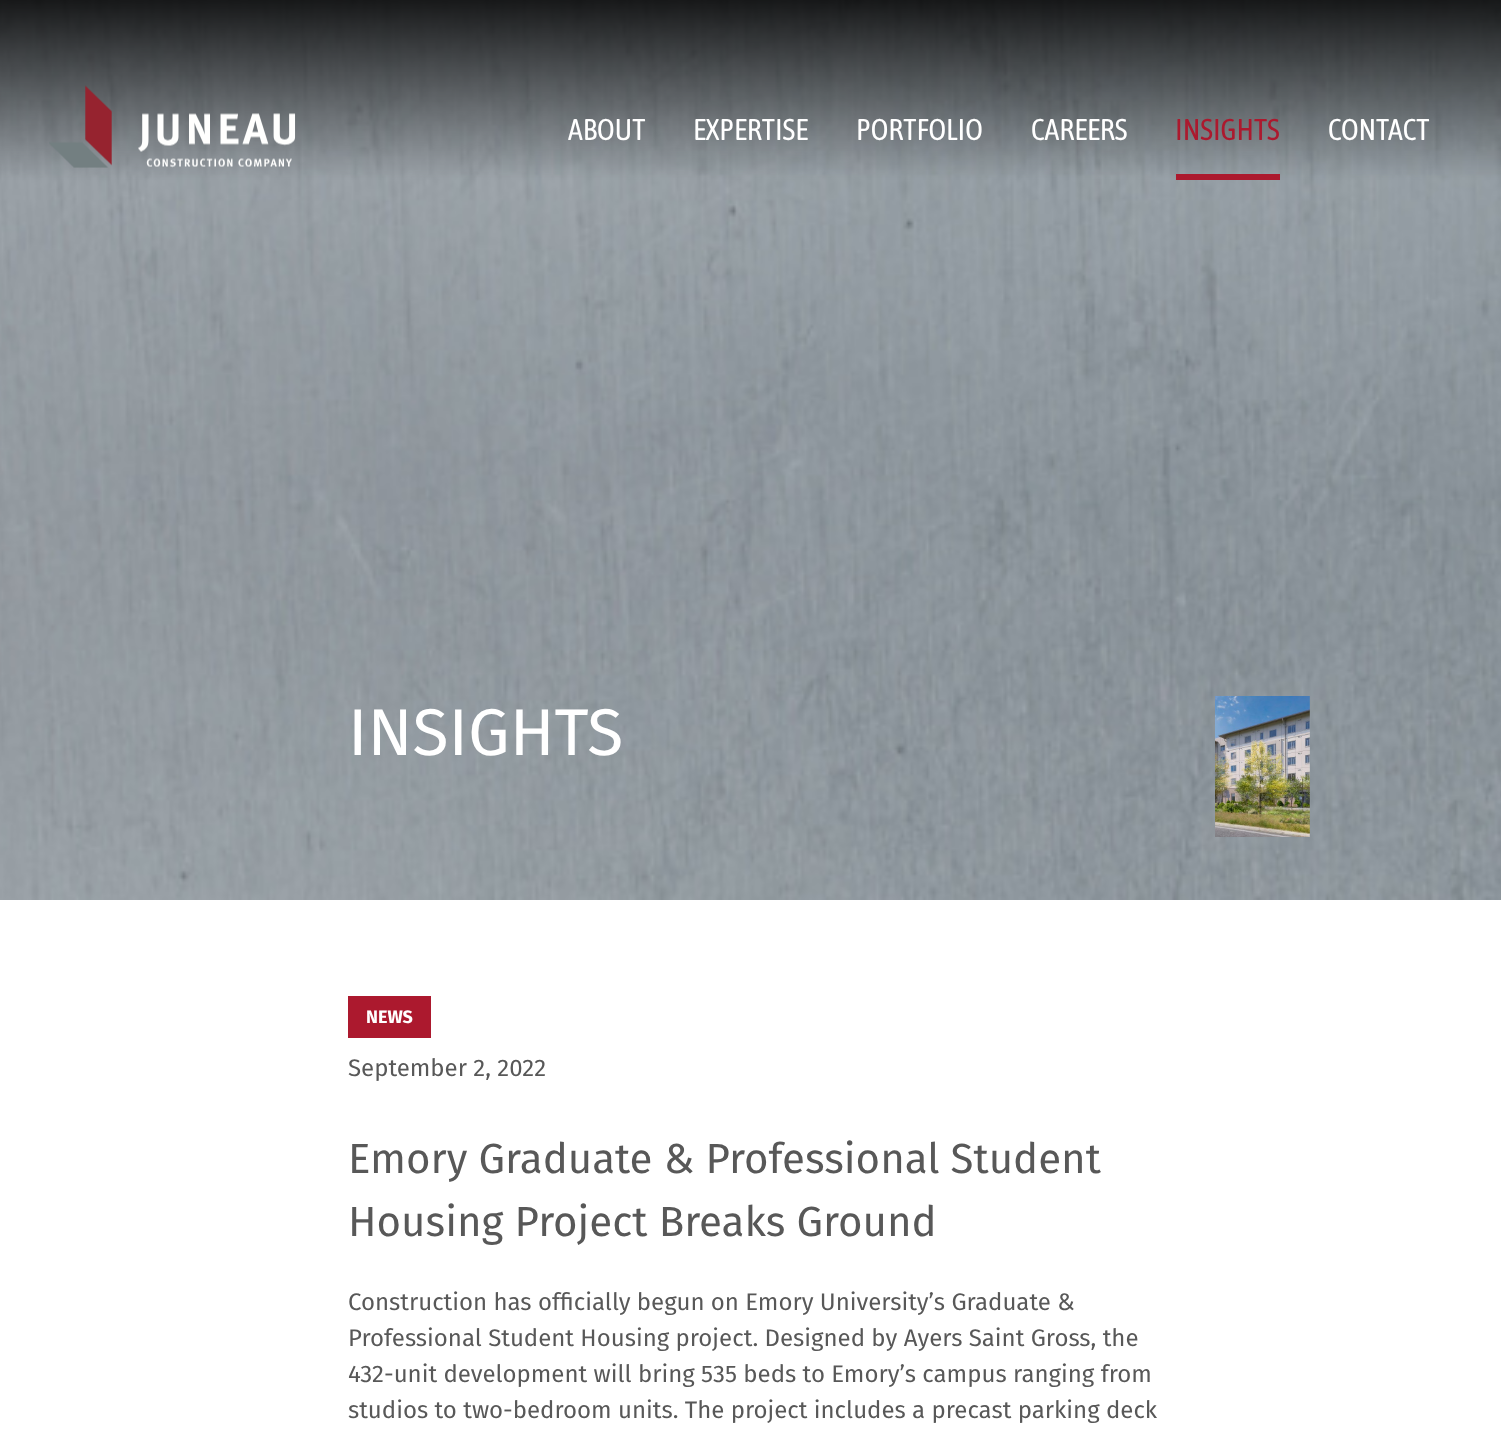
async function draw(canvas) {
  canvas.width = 1501
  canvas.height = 1433
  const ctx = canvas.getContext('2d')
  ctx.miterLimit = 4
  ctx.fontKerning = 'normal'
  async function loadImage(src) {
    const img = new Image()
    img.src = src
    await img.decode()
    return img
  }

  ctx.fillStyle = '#fff'
  ctx.fillRect(0, 0, 1501, 1433)
  ctx.drawImage(await loadImage('image1.png'), 0, 0, 1501, 900)
  ctx.drawImage(await loadImage('image0.png'), 49, 85, 247, 83)
  ctx.font = '30px Asap Condensed'
  ctx.fillText('ABOUT', 568, 140)
  ctx.fillText('EXPERTISE', 693, 140)
  ctx.fillText('PORTFOLIO', 856, 140)
  ctx.fillText('CAREERS', 1031, 140)
  ctx.fillStyle = '#ac192e'
  ctx.fillRect(1176, 174, 104, 6)
  ctx.fillText('INSIGHTS', 1175, 140)
  ctx.fillStyle = '#fff'
  ctx.fillText('CONTACT', 1328, 140)
  ctx.font = '66px Fira Sans'
  ctx.fillText('INSIGHTS', 348, 755)
  ctx.drawImage(await loadImage('image2.png'), 1215, 696, 95, 141)
  ctx.fillStyle = '#ac192e'
  ctx.fillRect(348, 996, 83, 42)
  ctx.font = 'bold 18px Fira Sans'
  ctx.fillStyle = '#fff'
  ctx.fillText('NEWS', 366, 1023)
  ctx.font = '24px Fira Sans'
  ctx.fillStyle = '#585858'
  ctx.fillText('September 2, 2022', 348, 1076)
  ctx.font = '42px Fira Sans'
  ctx.fillText('Emory Graduate & Professional Student', 348, 1173)
  ctx.fillText('Housing Project Breaks Ground', 348, 1236)
  ctx.font = '24px Fira Sans'
  ctx.fillText('Construction has officially begun on Emory University’s Graduate &', 348, 1310)
  ctx.fillText('Professional Student Housing project. Designed by Ayers Saint Gross, the', 348, 1346)
  ctx.fillText('432-unit development will bring 535 beds to Emory’s campus ranging from', 348, 1382)
  ctx.fillText('studios to two-bedroom units. The project includes a precast parking deck', 348, 1418)
}

draw(document.querySelector('canvas'))
